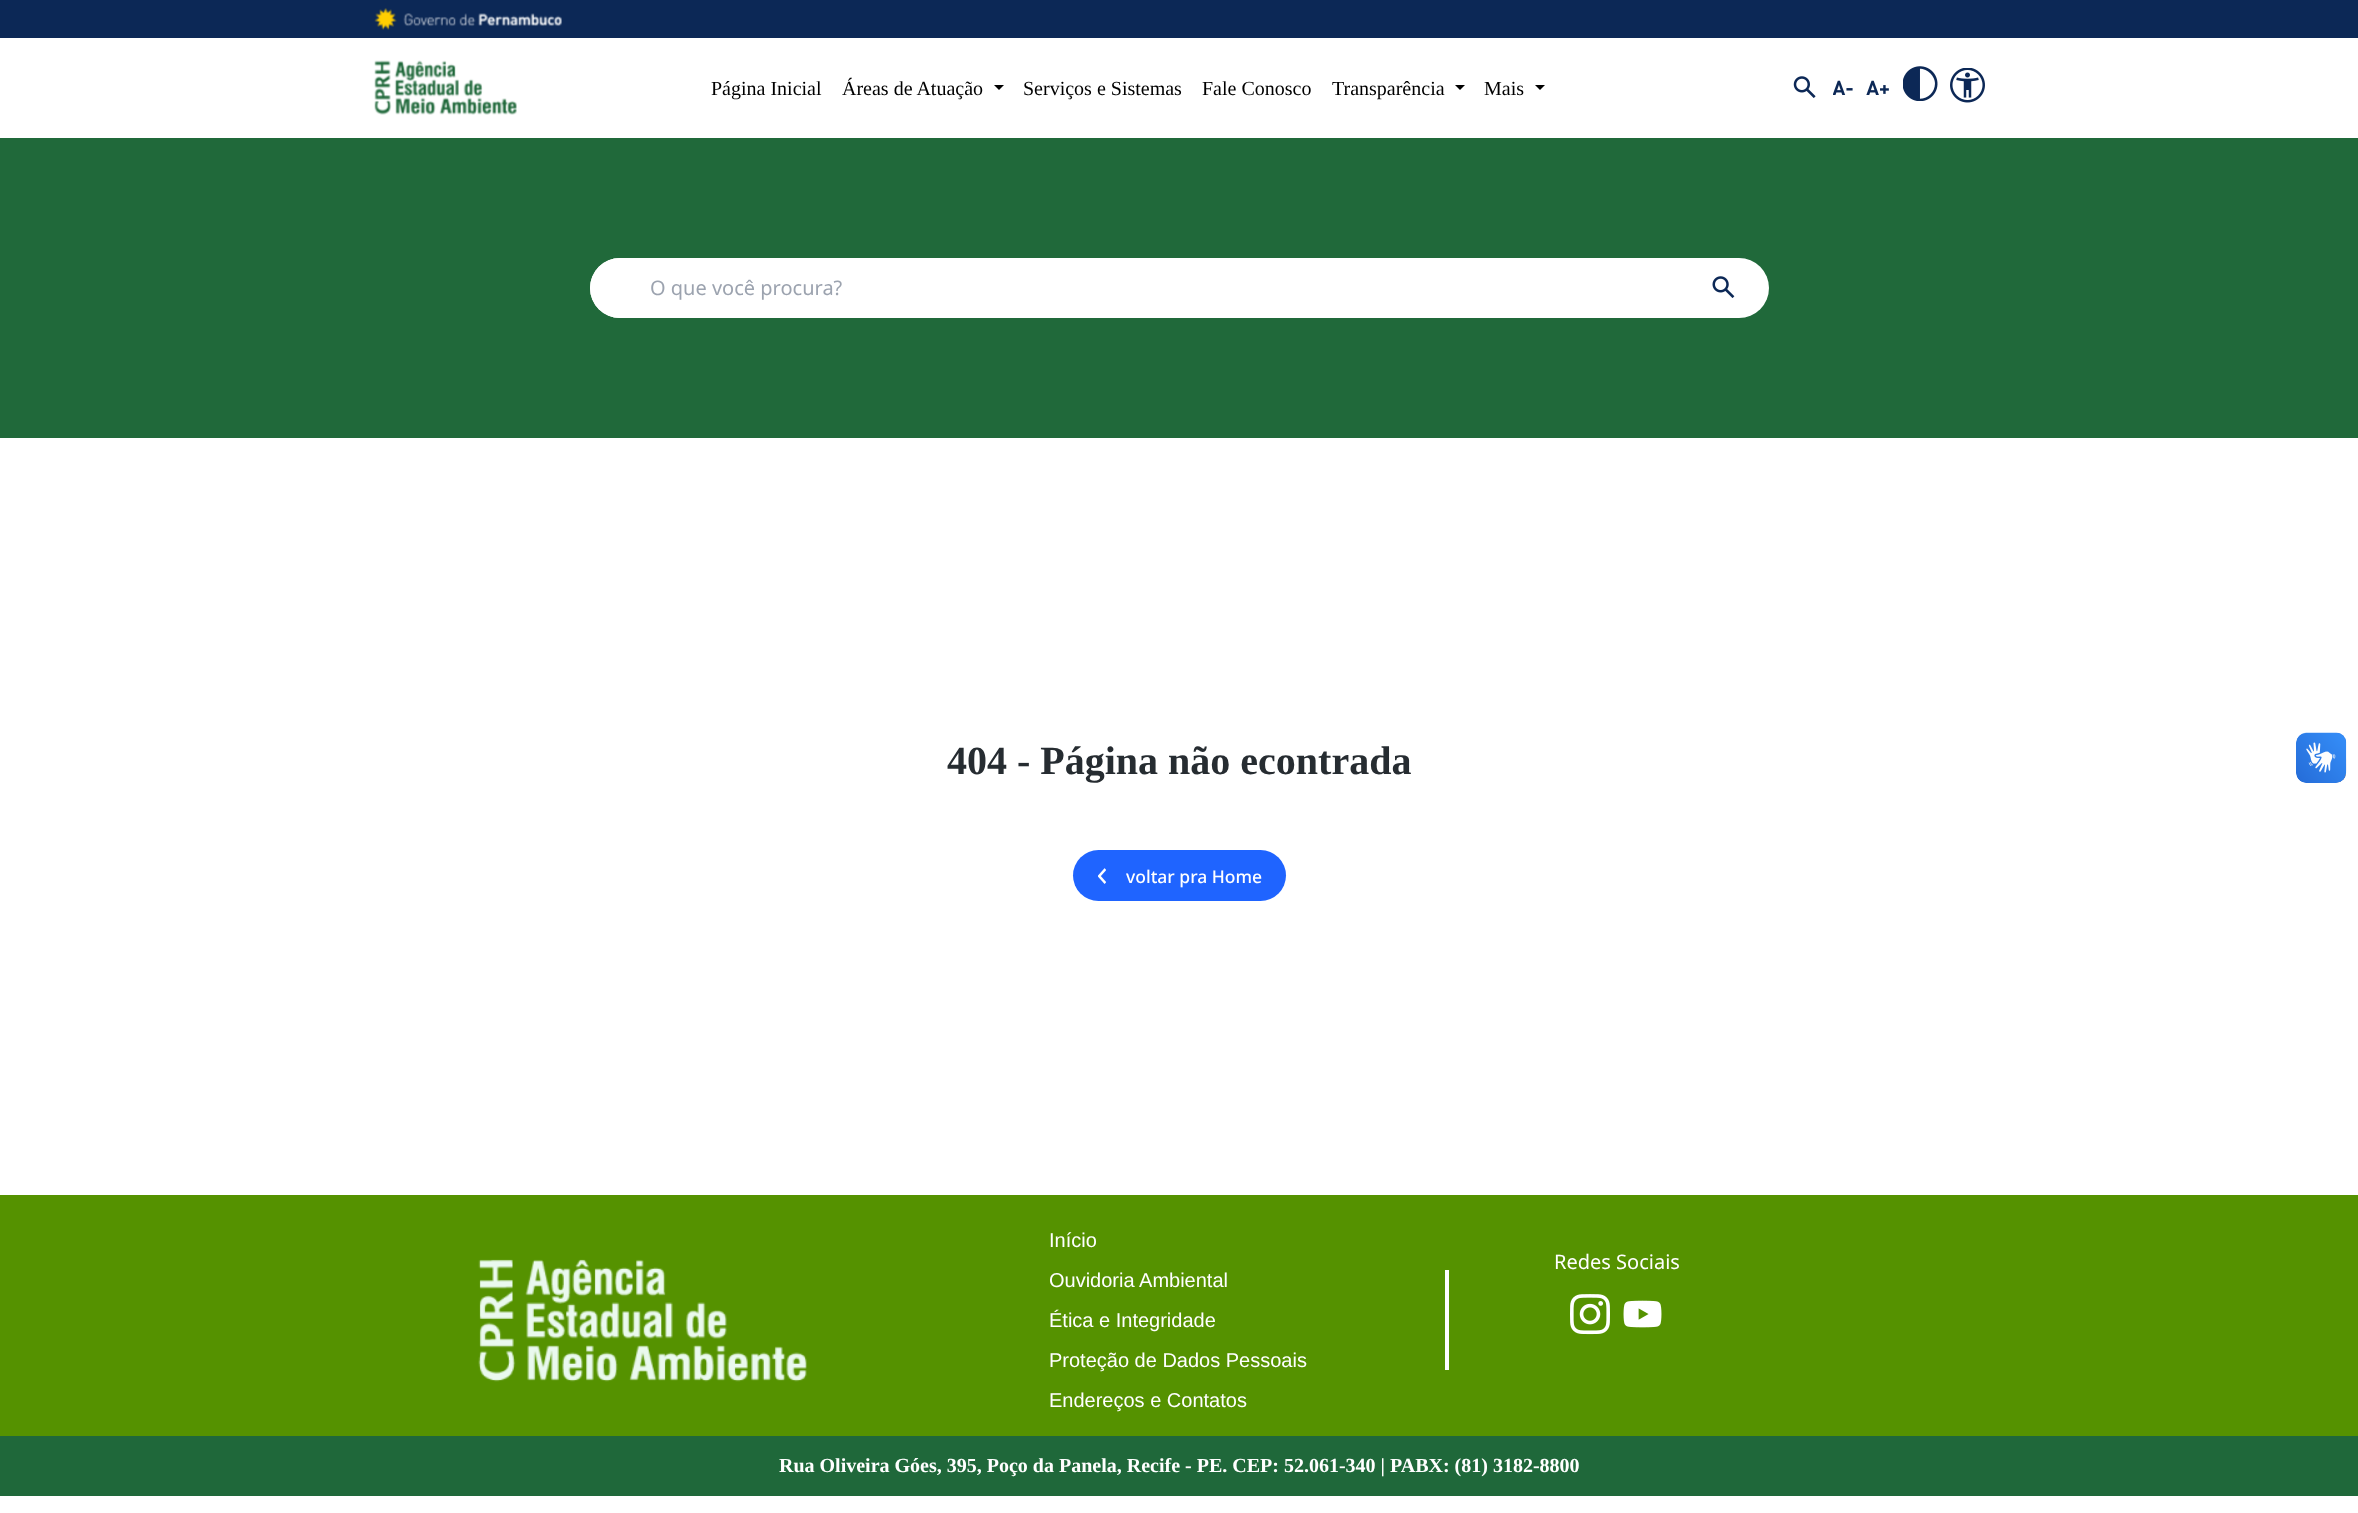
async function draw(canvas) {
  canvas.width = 2358
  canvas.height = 1513
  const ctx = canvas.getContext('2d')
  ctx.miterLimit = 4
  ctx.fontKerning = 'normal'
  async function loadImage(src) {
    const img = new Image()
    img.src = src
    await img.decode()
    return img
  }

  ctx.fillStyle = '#fff'
  ctx.fillRect(0, 0, 2358, 1513)
  ctx.fillStyle = '#0c2856'
  ctx.fillRect(0, 0, 2358, 38)
  ctx.drawImage(await loadImage('image0.png'), 374, 8, 188, 22)
  ctx.drawImage(await loadImage('image1.png'), 374, 60, 143, 55)
  ctx.font = '20px Liberation Serif'
  ctx.fillStyle = '#000'
  ctx.fillText('Página Inicial', 711, 95)
  ctx.fillText('Áreas de Atuação', 842, 95)
  ctx.beginPath()
  ctx.moveTo(994, 85)
  ctx.lineTo(1004, 85)
  ctx.lineTo(999, 90)
  ctx.closePath()
  ctx.fill()
  ctx.fillText('Serviços e Sistemas', 1023, 95)
  ctx.fillText('Fale Conosco', 1202, 95)
  ctx.fillText('Transparência', 1332, 95)
  ctx.beginPath()
  ctx.moveTo(1455, 85)
  ctx.lineTo(1465, 85)
  ctx.lineTo(1460, 90)
  ctx.closePath()
  ctx.fill()
  ctx.fillText('Mais', 1484, 95)
  ctx.beginPath()
  ctx.moveTo(1535, 85)
  ctx.lineTo(1545, 85)
  ctx.lineTo(1540, 90)
  ctx.closePath()
  ctx.fill()
  ctx.drawImage(await loadImage('image2.png'), 1793, 76, 23, 22)
  ctx.drawImage(await loadImage('image3.png'), 1833, 80, 20, 15)
  ctx.drawImage(await loadImage('image4.png'), 1866, 80, 23, 15)
  ctx.drawImage(await loadImage('image5.png'), 1903, 66, 35, 35)
  ctx.drawImage(await loadImage('image6.png'), 1950, 68, 35, 35)
  ctx.fillStyle = '#20693a'
  ctx.fillRect(0, 138, 2358, 300)
  ctx.fillStyle = '#fff'
  ctx.beginPath()
  ctx.roundRect(590, 258, 1179, 60, 30)
  ctx.fill()
  ctx.beginPath()
  ctx.roundRect(590, 258, 1088, 60, 30)
  ctx.fill()
  ctx.font = '20px Noto Sans'
  ctx.fillStyle = '#9ca3af'
  ctx.fillText('O que você procura?', 650, 295)
  ctx.drawImage(await loadImage('image7.png'), 1712, 276, 23, 22)
  ctx.font = 'bold 40px Liberation Serif'
  ctx.fillStyle = '#262c31'
  ctx.fillText('404 - Página não econtrada', 947, 774)
  ctx.fillStyle = '#1f64ff'
  ctx.beginPath()
  ctx.roundRect(1073, 850, 213, 51, 25.5)
  ctx.fill()
  ctx.drawImage(await loadImage('image8.png'), 1098, 868, 8, 16)
  ctx.font = '500 17.5px Noto Sans'
  ctx.fillStyle = '#fff'
  ctx.fillText('voltar pra Home', 1126, 883)
  ctx.drawImage(await loadImage('image9.png'), 2296, 732, 51, 51)
  ctx.drawImage(await loadImage('image10.png'), 2296, 733, 50, 50)
  ctx.fillStyle = '#559200'
  ctx.fillRect(0, 1195, 2358, 241)
  ctx.drawImage(await loadImage('image11.png'), 478, 1259, 329, 123)
  ctx.font = '20px Liberation Sans'
  ctx.fillStyle = '#fff'
  ctx.fillText('Início', 1049, 1247)
  ctx.fillText('Ouvidoria Ambiental', 1049, 1287)
  ctx.fillText('Ética e Integridade', 1049, 1327)
  ctx.fillText('Proteção de Dados Pessoais', 1049, 1367)
  ctx.fillText('Endereços e Contatos', 1049, 1407)
  ctx.fillRect(1445, 1270, 4, 100)
  ctx.font = '20px Noto Sans'
  ctx.fillText('Redes Sociais', 1554, 1269)
  ctx.drawImage(await loadImage('image12.png'), 1570, 1294, 40, 41)
  ctx.drawImage(await loadImage('image13.png'), 1623, 1300, 39, 28)
  ctx.fillStyle = '#1f683a'
  ctx.fillRect(0, 1436, 2358, 60)
  ctx.font = 'bold 20px Liberation Serif'
  ctx.fillStyle = '#fff'
  ctx.fillText('Rua Oliveira Góes, 395, Poço da Panela, Recife - PE. CEP: 52.061-340 | PABX: (81) 3182-8800', 779, 1472)
}

draw(document.querySelector('canvas'))
